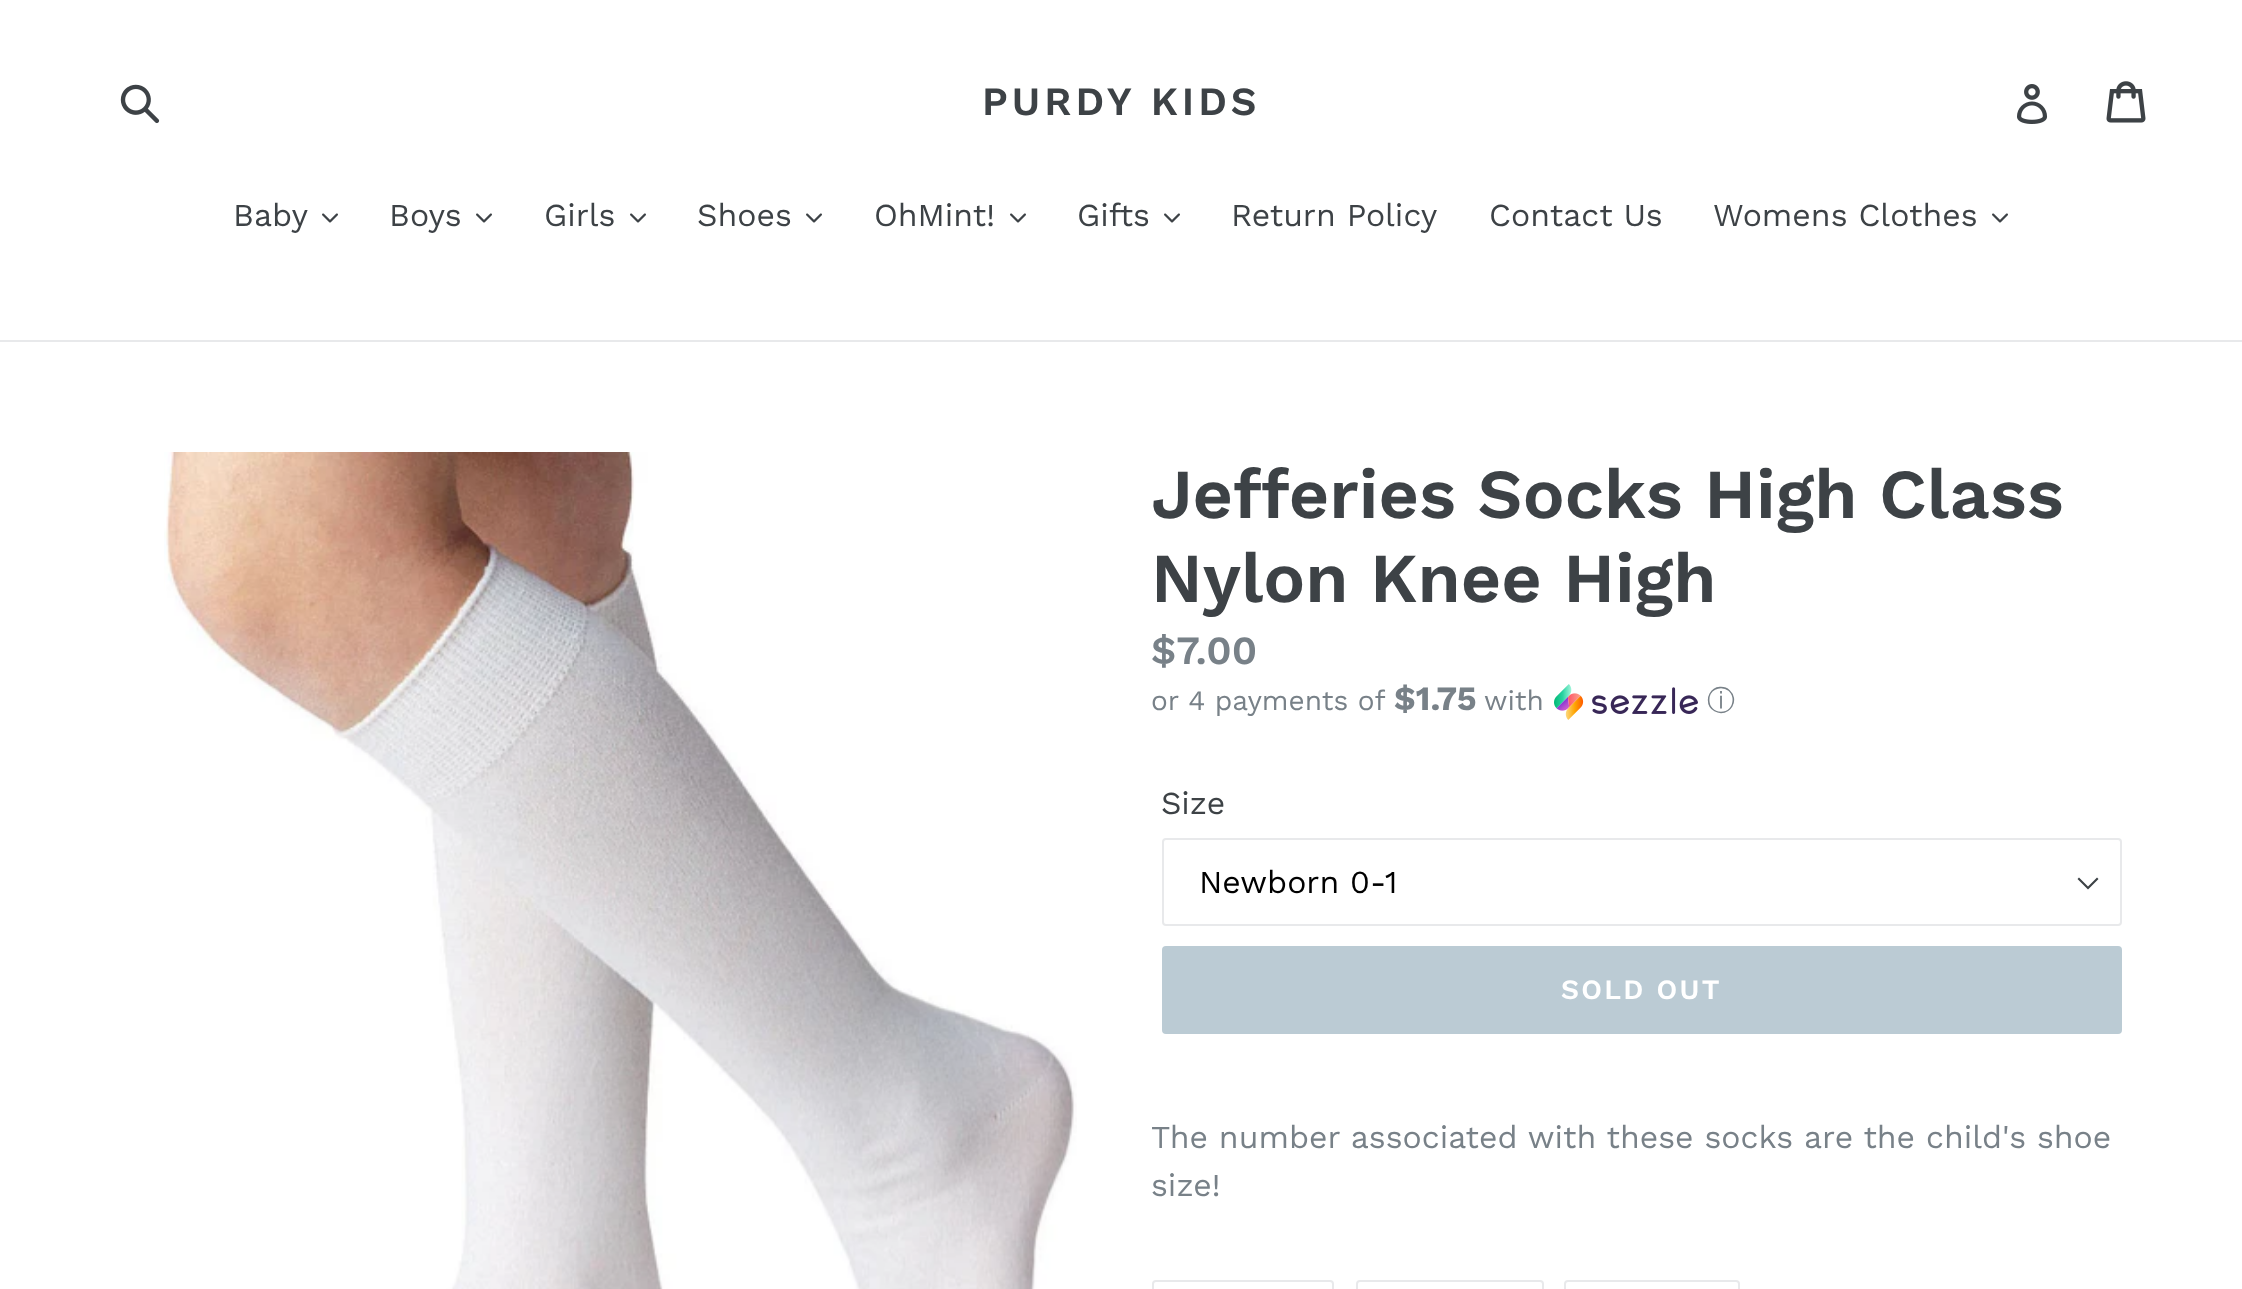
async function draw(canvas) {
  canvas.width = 2242
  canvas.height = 1289
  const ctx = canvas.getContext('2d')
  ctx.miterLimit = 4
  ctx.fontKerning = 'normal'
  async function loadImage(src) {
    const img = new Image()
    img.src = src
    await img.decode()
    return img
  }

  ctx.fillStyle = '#fff'
  ctx.fillRect(0, 0, 2242, 1289)
  ctx.drawImage(await loadImage('image0.png'), 120, 84, 40, 40)
  ctx.letterSpacing = '4px'
  ctx.font = '600 40px Work Sans'
  ctx.fillStyle = '#3d4246'
  ctx.fillText('PURDY KIDS', 982, 115)
  ctx.drawImage(await loadImage('image1.png'), 2017, 84, 31, 40)
  ctx.drawImage(await loadImage('image2.png'), 2106, 81, 40, 42)
  ctx.fillStyle = '#e8e9eb'
  ctx.fillRect(0, 340, 2242, 2)
  ctx.letterSpacing = '0px'
  ctx.font = '32px Work Sans'
  ctx.fillStyle = '#3d4246'
  ctx.fillText('Baby', 233, 226)
  ctx.drawImage(await loadImage('image3.png'), 322, 213, 16, 10)
  ctx.fillText('Boys', 389, 226)
  ctx.drawImage(await loadImage('image3.png'), 476, 213, 16, 10)
  ctx.fillText('Girls', 544, 226)
  ctx.drawImage(await loadImage('image3.png'), 630, 213, 16, 10)
  ctx.fillText('Shoes', 697, 226)
  ctx.drawImage(await loadImage('image3.png'), 806, 213, 16, 10)
  ctx.fillText('OhMint!', 874, 226)
  ctx.drawImage(await loadImage('image3.png'), 1010, 213, 16, 10)
  ctx.fillText('Gifts', 1077, 226)
  ctx.drawImage(await loadImage('image3.png'), 1164, 213, 16, 10)
  ctx.fillText('Return Policy', 1231, 226)
  ctx.fillText('Contact Us', 1489, 226)
  ctx.fillText('Womens Clothes', 1713, 226)
  ctx.drawImage(await loadImage('image3.png'), 1992, 213, 16, 10)
  ctx.drawImage(await loadImage('image4.png'), 164, 452, 913, 837)
  ctx.font = '600 70px Work Sans'
  ctx.fillText('Jefferies Socks High Class', 1151, 518)
  ctx.fillText('Nylon Knee High', 1151, 602)
  ctx.font = '600 40px Work Sans'
  ctx.fillStyle = '#788188'
  ctx.fillText('$7.00', 1151, 664)
  ctx.font = '28px Work Sans'
  ctx.fillText('or 4 payments of', 1151, 710)
  ctx.font = 'bold 34px Work Sans'
  ctx.fillText('$1.75', 1394, 710)
  ctx.font = '28px Work Sans'
  ctx.fillText('with', 1484, 710)
  ctx.drawImage(await loadImage('image5.png'), 1554, 684, 144, 36)
  ctx.font = '500 28px WenQuanYi Zen Hei'
  ctx.fillText('ⓘ', 1707, 710)
  ctx.font = '32px Work Sans'
  ctx.fillStyle = '#3d4246'
  ctx.fillText('Size', 1161, 814)
  ctx.beginPath()
  ctx.moveTo(2088, 889.5)
  ctx.lineTo(2077.5, 879)
  ctx.lineTo(2079, 877.5)
  ctx.lineTo(2088, 886.5)
  ctx.lineTo(2097, 877.5)
  ctx.lineTo(2098.5, 879)
  ctx.closePath()
  ctx.fill()
  ctx.beginPath()
  ctx.roundRect(1163, 839, 958, 86, 3)
  ctx.strokeStyle = '#e8e9eb'
  ctx.lineWidth = 2
  ctx.stroke()
  ctx.fillStyle = '#000'
  ctx.fillText('Newborn 0-1', 1199, 893)
  ctx.fillStyle = '#bbcbd4'
  ctx.beginPath()
  ctx.roundRect(1162, 946, 960, 88, 4)
  ctx.fill()
  ctx.letterSpacing = '2.25px'
  ctx.font = '600 28px Work Sans'
  ctx.fillStyle = '#fff'
  ctx.fillText('SOLD OUT', 1561, 999)
  ctx.letterSpacing = '0px'
  ctx.font = '32px Work Sans'
  ctx.fillStyle = '#788188'
  ctx.fillText('The number associated with these socks are the child\'s shoe', 1151, 1148)
  ctx.fillText('size!', 1151, 1196)
  ctx.beginPath()
  ctx.roundRect(1153, 1281, 180, 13, 3)
  ctx.stroke()
  ctx.beginPath()
  ctx.roundRect(1357, 1281, 186, 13, 3)
  ctx.stroke()
  ctx.beginPath()
  ctx.roundRect(1565, 1281, 174, 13, 3)
  ctx.stroke()
}

draw(document.querySelector('canvas'))
